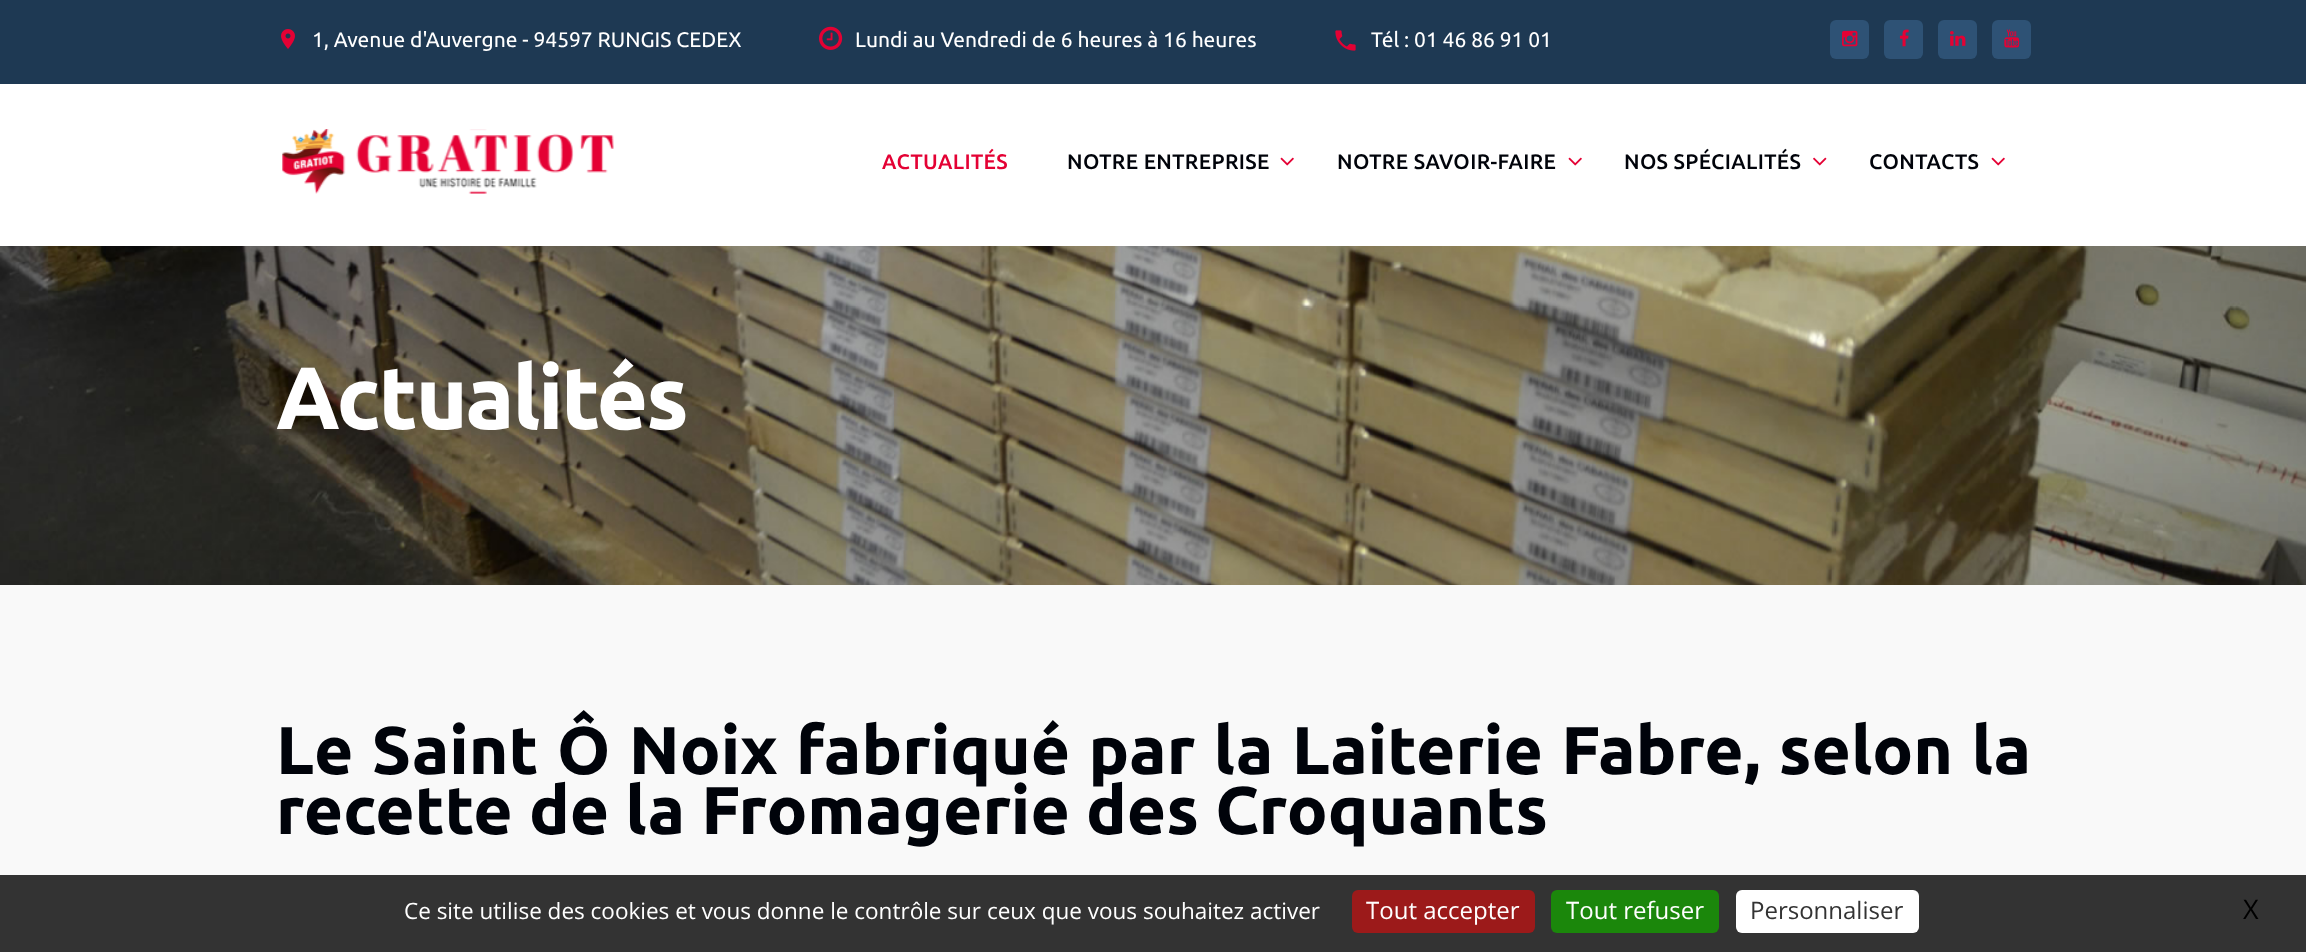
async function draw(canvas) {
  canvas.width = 2306
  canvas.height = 952
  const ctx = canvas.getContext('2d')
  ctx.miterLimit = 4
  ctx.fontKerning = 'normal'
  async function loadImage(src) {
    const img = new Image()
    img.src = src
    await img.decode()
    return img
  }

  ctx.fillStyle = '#fff'
  ctx.fillRect(0, 0, 2306, 952)
  ctx.fillStyle = '#1e3953'
  ctx.fillRect(0, 0, 2306, 84)
  ctx.drawImage(await loadImage('image0.png'), 281, 29, 14, 20)
  ctx.font = '21px Ubuntu'
  ctx.fillStyle = '#fff'
  ctx.fillText('1, Avenue d\'Auvergne - 94597 RUNGIS CEDEX', 312, 47)
  ctx.drawImage(await loadImage('image1.png'), 819, 26, 24, 24)
  ctx.fillText('Lundi au Vendredi de 6 heures à 16 heures', 855, 47)
  ctx.drawImage(await loadImage('image2.png'), 1335, 30, 21, 21)
  ctx.fillText('Tél : 01 46 86 91 01', 1371, 47)
  ctx.fillStyle = '#2e5275'
  ctx.beginPath()
  ctx.roundRect(1830, 20, 39, 39, 6)
  ctx.fill()
  ctx.drawImage(await loadImage('image3.png'), 1842, 30, 16, 17)
  ctx.beginPath()
  ctx.roundRect(1884, 20, 39, 39, 6)
  ctx.fill()
  ctx.drawImage(await loadImage('image4.png'), 1899, 29, 10, 18)
  ctx.beginPath()
  ctx.roundRect(1938, 20, 39, 39, 6)
  ctx.fill()
  ctx.drawImage(await loadImage('image5.png'), 1950, 31, 16, 15)
  ctx.beginPath()
  ctx.roundRect(1992, 20, 39, 39, 6)
  ctx.fill()
  ctx.drawImage(await loadImage('image6.png'), 2004, 29, 16, 19)
  ctx.drawImage(await loadImage('image7.png'), 282, 129, 332, 65)
  ctx.letterSpacing = '0.4px'
  ctx.font = '500 21px Ubuntu'
  ctx.fillStyle = '#e40134'
  ctx.fillText('ACTUALITÉS', 882, 169)
  ctx.fillStyle = '#00030a'
  ctx.fillText('NOTRE ENTREPRISE', 1067, 169)
  ctx.drawImage(await loadImage('image8.png'), 1280, 157, 14, 9)
  ctx.fillText('NOTRE SAVOIR-FAIRE', 1337, 169)
  ctx.drawImage(await loadImage('image8.png'), 1568, 157, 14, 9)
  ctx.fillText('NOS SPÉCIALITÉS', 1624, 169)
  ctx.drawImage(await loadImage('image9.png'), 1813, 157, 14, 9)
  ctx.fillText('CONTACTS', 1869, 169)
  ctx.drawImage(await loadImage('image8.png'), 1991, 157, 14, 9)
  ctx.drawImage(await loadImage('image10.png'), 0, 246, 2306, 339)
  ctx.letterSpacing = '-2.25px'
  ctx.font = 'bold 88.5px Ubuntu'
  ctx.fillStyle = '#fff'
  ctx.fillText('Actualités', 276, 429)
  ctx.fillStyle = '#f9f9f9'
  ctx.fillRect(0, 585, 2306, 290)
  ctx.letterSpacing = '0px'
  ctx.wordSpacing = '2.25px'
  ctx.font = 'bold 67.5px Ubuntu'
  ctx.fillStyle = '#00030a'
  ctx.fillText('Le Saint Ô Noix fabriqué par la Laiterie Fabre, selon la', 276, 774)
  ctx.wordSpacing = '0px'
  ctx.fillText('recette de la Fromagerie des Croquants', 276, 834)
  ctx.fillStyle = '#333'
  ctx.fillRect(0, 875, 2306, 77)
  ctx.font = '22.5px Open Sans'
  ctx.fillStyle = '#fff'
  ctx.fillText('Ce site utilise des cookies et vous donne le contrôle sur ceux que vous souhaitez activer', 404, 919)
  ctx.fillStyle = '#9c1a1a'
  ctx.beginPath()
  ctx.roundRect(1352, 890, 183, 43, 6)
  ctx.fill()
  ctx.font = '24px Open Sans'
  ctx.fillStyle = '#fff'
  ctx.fillText('Tout accepter', 1366, 919)
  ctx.fillStyle = '#1b870b'
  ctx.beginPath()
  ctx.roundRect(1551, 890, 168, 43, 6)
  ctx.fill()
  ctx.fillStyle = '#fff'
  ctx.fillText('Tout refuser', 1566, 919)
  ctx.beginPath()
  ctx.roundRect(1736, 890, 183, 43, 6)
  ctx.fill()
  ctx.fillStyle = '#333'
  ctx.fillText('Personnaliser', 1750, 919)
  ctx.font = '27px Open Sans'
  ctx.fillStyle = '#000'
  ctx.fillText('X', 2243, 919)
}

draw(document.querySelector('canvas'))
